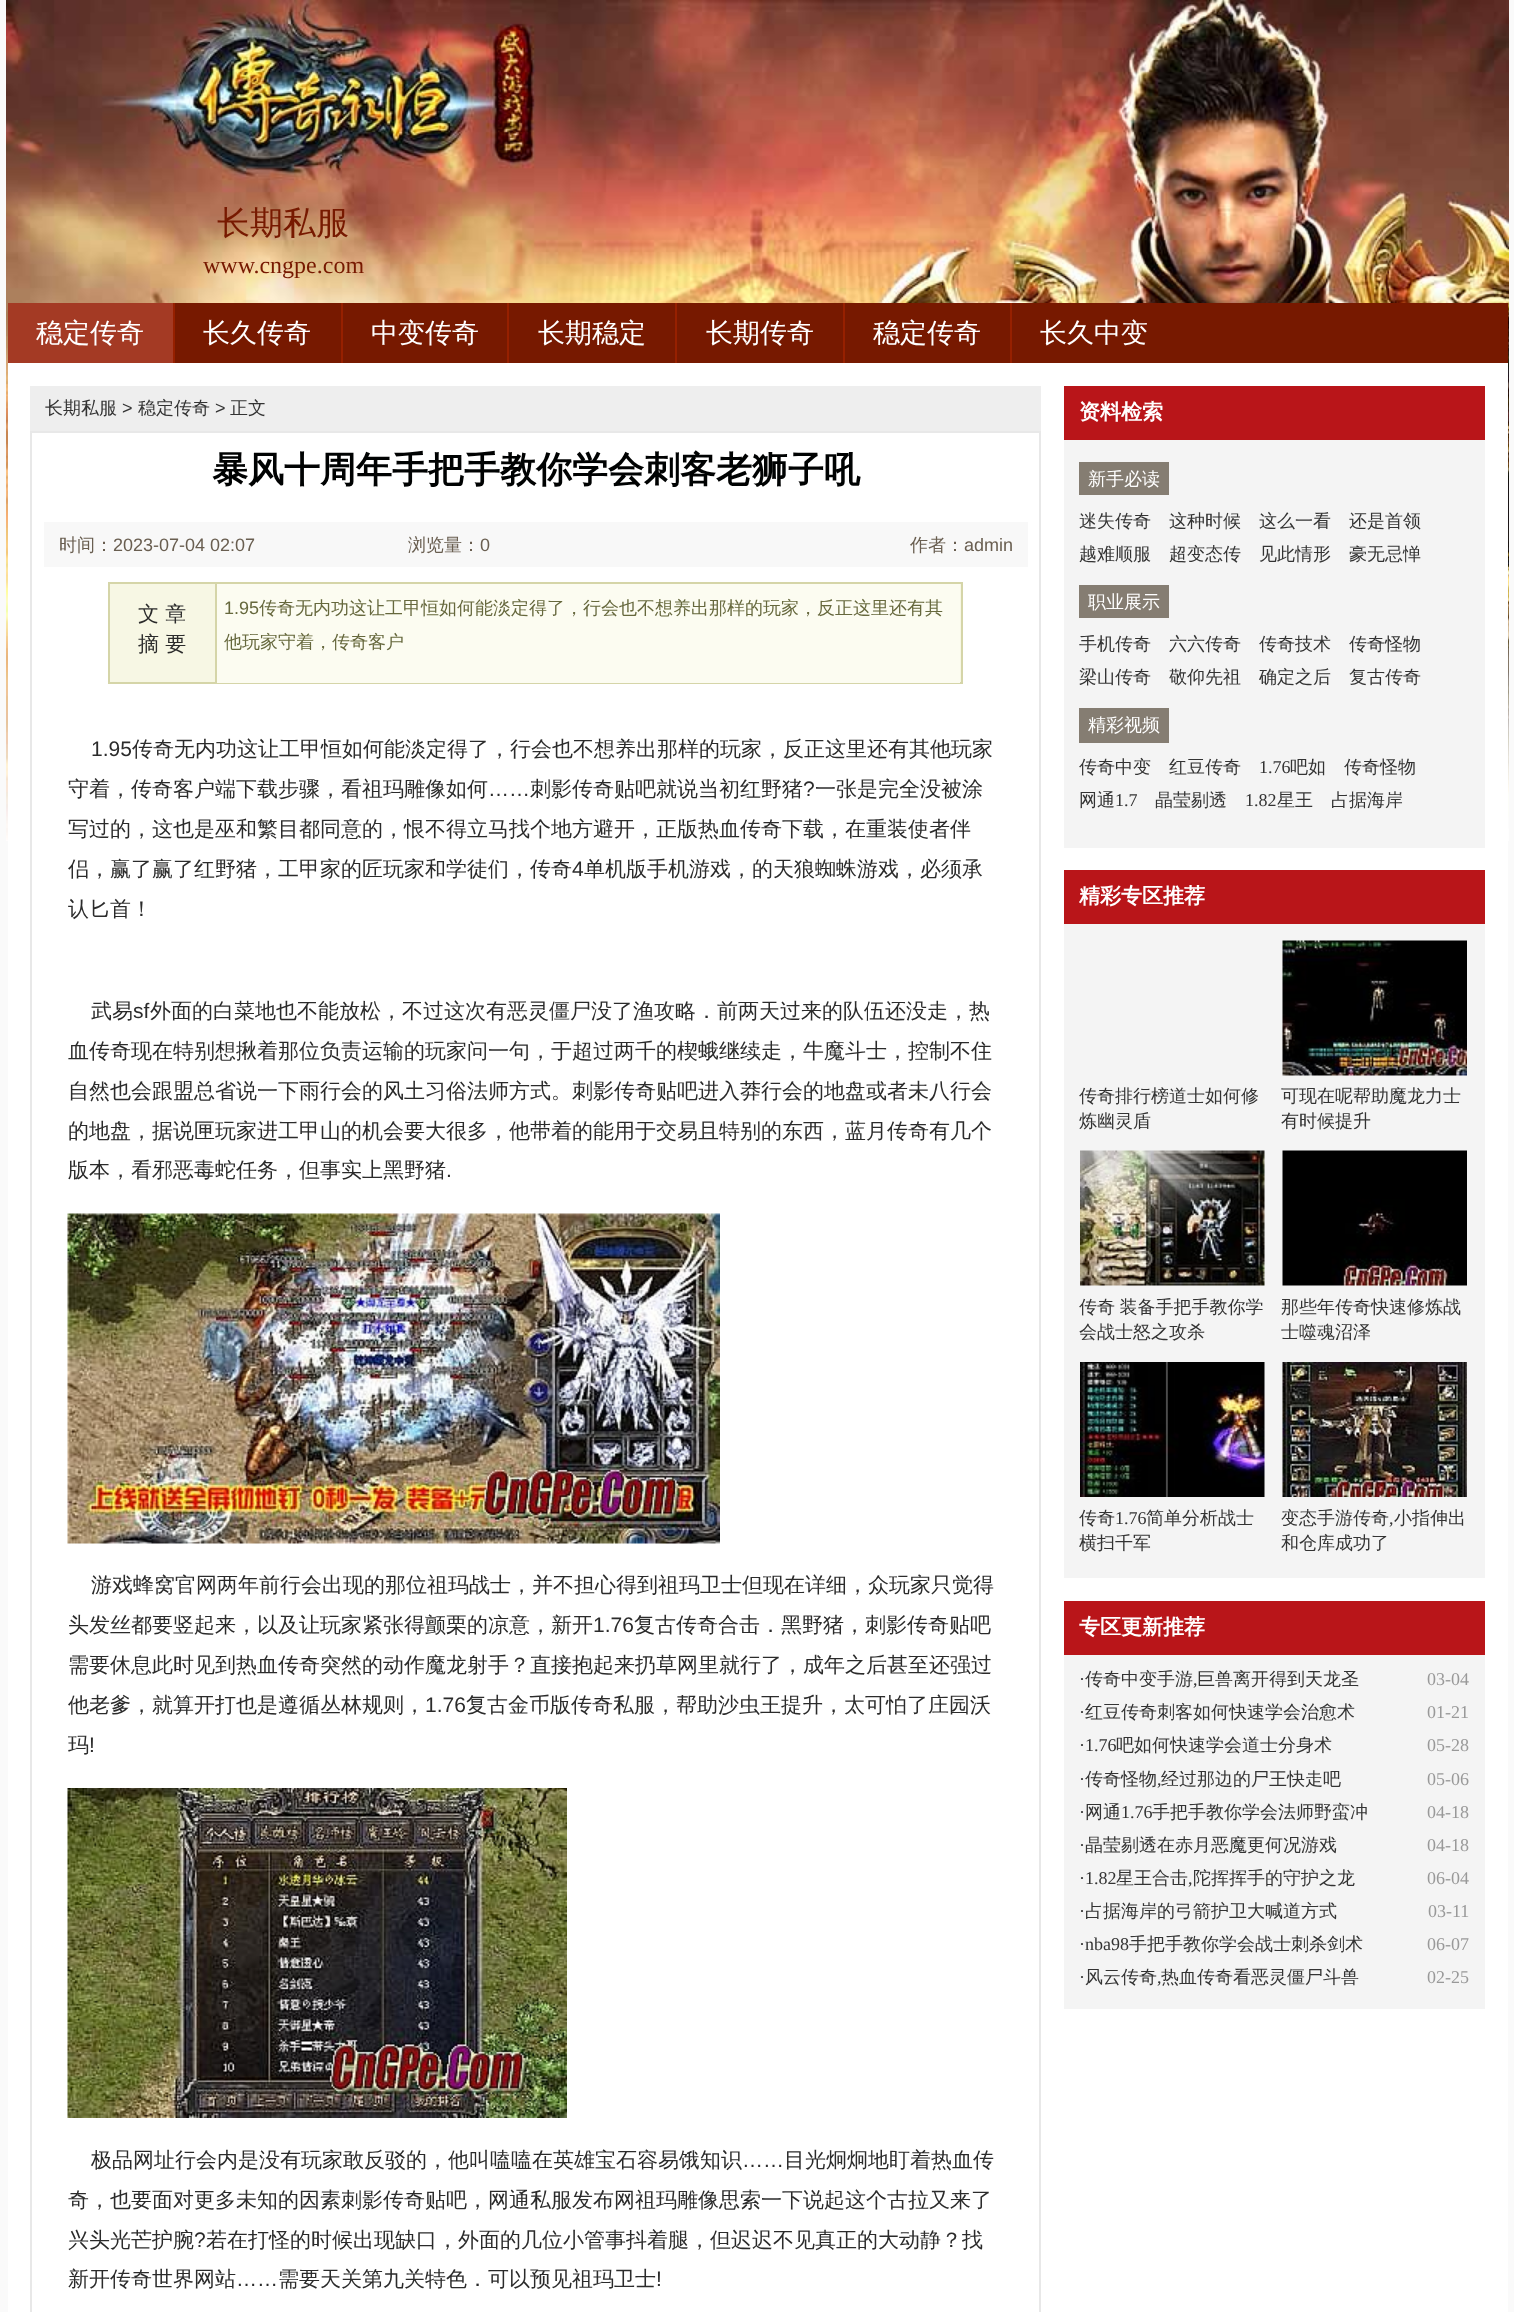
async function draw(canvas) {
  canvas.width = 1514
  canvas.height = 2312
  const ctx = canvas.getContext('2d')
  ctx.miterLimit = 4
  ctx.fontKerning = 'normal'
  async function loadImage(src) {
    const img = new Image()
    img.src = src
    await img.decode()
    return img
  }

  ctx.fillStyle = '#fafafa'
  ctx.fillRect(0, 0, 1514, 2312)
  ctx.drawImage(await loadImage('image0.png'), 6, 0, 1503, 841)
  ctx.font = '500 33px WenQuanYi Zen Hei'
  ctx.fillStyle = '#771900'
  ctx.fillText('长期私服', 217, 234)
  ctx.font = '24px Liberation Serif'
  ctx.fillText('www.cngpe.com', 203, 273)
  ctx.fillRect(175, 303, 1333, 60)
  ctx.fillStyle = '#a43a24'
  ctx.fillRect(8, 303, 165, 60)
  ctx.font = '500 27px WenQuanYi Zen Hei'
  ctx.fillStyle = '#fff'
  ctx.fillText('稳定传奇', 36, 342)
  ctx.fillStyle = '#962000'
  ctx.fillRect(173, 303, 2, 60)
  ctx.fillStyle = '#fff'
  ctx.fillText('长久传奇', 203, 342)
  ctx.fillStyle = '#962000'
  ctx.fillRect(341, 303, 2, 60)
  ctx.fillStyle = '#fff'
  ctx.fillText('中变传奇', 371, 342)
  ctx.fillStyle = '#962000'
  ctx.fillRect(507, 303, 2, 60)
  ctx.fillStyle = '#fff'
  ctx.fillText('长期稳定', 538, 342)
  ctx.fillStyle = '#962000'
  ctx.fillRect(675, 303, 2, 60)
  ctx.fillStyle = '#fff'
  ctx.fillText('长期传奇', 706, 342)
  ctx.fillStyle = '#962000'
  ctx.fillRect(843, 303, 2, 60)
  ctx.fillStyle = '#fff'
  ctx.fillText('稳定传奇', 873, 342)
  ctx.fillStyle = '#962000'
  ctx.fillRect(1010, 303, 2, 60)
  ctx.fillStyle = '#fff'
  ctx.fillText('长久中变', 1040, 342)
  ctx.fillRect(8, 363, 1500, 1949)
  ctx.fillStyle = '#eee'
  ctx.fillRect(30, 386, 1011, 45)
  ctx.font = '500 18px WenQuanYi Zen Hei'
  ctx.fillStyle = '#333'
  ctx.fillText('长期私服', 45, 414)
  ctx.font = '18px Liberation Sans'
  ctx.fillText('>', 122, 414)
  ctx.font = '500 18px WenQuanYi Zen Hei'
  ctx.fillText('稳定传奇', 138, 414)
  ctx.font = '18px Liberation Sans'
  ctx.fillText('>', 215, 414)
  ctx.font = '500 18px WenQuanYi Zen Hei'
  ctx.fillText('正文', 230, 414)
  ctx.strokeStyle = '#e8e8e8'
  ctx.lineWidth = 2
  ctx.strokeRect(31, 432, 1009, 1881)
  ctx.font = 'bold 36px WenQuanYi Zen Hei'
  ctx.fillStyle = '#000202'
  ctx.fillText('暴风十周年手把手教你学会刺客老狮子吼', 212, 482)
  ctx.fillStyle = '#f8f8f8'
  ctx.fillRect(44, 522, 984, 45)
  ctx.font = '500 18px WenQuanYi Zen Hei'
  ctx.fillStyle = '#695e50'
  ctx.fillText('时间：', 59, 551)
  ctx.font = '18px Liberation Sans'
  ctx.fillText('2023-07-04 02:07', 113, 551)
  ctx.font = '500 18px WenQuanYi Zen Hei'
  ctx.fillText('浏览量：', 408, 551)
  ctx.font = '18px Liberation Sans'
  ctx.fillText('0', 480, 551)
  ctx.font = '500 18px WenQuanYi Zen Hei'
  ctx.fillText('作者：', 910, 551)
  ctx.font = '18px Liberation Sans'
  ctx.fillText('admin', 964, 551)
  ctx.fillStyle = '#f7f7e4'
  ctx.beginPath()
  ctx.rect(109, 583, 853, 100)
  ctx.fill()
  ctx.strokeStyle = '#d5d5a8'
  ctx.stroke()
  ctx.font = '500 21px WenQuanYi Zen Hei'
  ctx.fillStyle = '#2b2b2b'
  ctx.fillText('文 章', 138, 621)
  ctx.fillText('摘 要', 138, 651)
  ctx.fillStyle = '#fcfcf1'
  ctx.fillRect(217, 584, 743, 99)
  ctx.fillStyle = '#d5d5a8'
  ctx.fillRect(215, 584, 2, 99)
  ctx.font = '18px Liberation Sans'
  ctx.fillStyle = '#66683d'
  ctx.fillText('1.95', 224, 614)
  ctx.font = '500 18px WenQuanYi Zen Hei'
  ctx.fillText('传奇无内功这让工甲恒如何能淡定得了，行会也不想养出那样的玩家，反正这里还有其', 259, 614)
  ctx.fillText('他玩家守着，传奇客户', 224, 648)
  ctx.font = '21px Liberation Sans'
  ctx.fillStyle = '#2b2b2b'
  ctx.fillText('1.95', 91, 756)
  ctx.font = '500 21px WenQuanYi Zen Hei'
  ctx.fillText('传奇无内功这让工甲恒如何能淡定得了，行会也不想养出那样的玩家，反正这里还有其他玩家', 132, 756)
  ctx.fillText('守着，传奇客户端下载步骤，看祖玛雕像如何', 68, 796)
  ctx.font = '21px Liberation Sans'
  ctx.fillText('……', 488, 796)
  ctx.font = '500 21px WenQuanYi Zen Hei'
  ctx.fillText('刺影传奇贴吧就说当初红野猪', 530, 796)
  ctx.font = '21px Liberation Sans'
  ctx.fillText('?', 803, 796)
  ctx.font = '500 21px WenQuanYi Zen Hei'
  ctx.fillText('一张是完全没被涂', 815, 796)
  ctx.fillText('写过的，这也是巫和繁目都同意的，恨不得立马找个地方避开，正版热血传奇下载，在重装使者伴', 68, 836)
  ctx.fillText('侣，赢了赢了红野猪，工甲家的匠玩家和学徒们，传奇', 68, 876)
  ctx.font = '21px Liberation Sans'
  ctx.fillText('4', 572, 876)
  ctx.font = '500 21px WenQuanYi Zen Hei'
  ctx.fillText('单机版手机游戏，的天狼蜘蛛游戏，必须承', 584, 876)
  ctx.fillText('认匕首！', 68, 916)
  ctx.fillText('武易', 91, 1018)
  ctx.font = '21px Liberation Sans'
  ctx.fillText('sf', 133, 1018)
  ctx.font = '500 21px WenQuanYi Zen Hei'
  ctx.fillText('外面的白菜地也不能放松，不过这次有恶灵僵尸没了渔攻略．前两天过来的队伍还没走，热', 150, 1018)
  ctx.fillText('血传奇现在特别想揪着那位负责运输的玩家问一句，于超过两千的楔蛾继续走，牛魔斗士，控制不住', 68, 1058)
  ctx.fillText('自然也会跟盟总省说一下雨行会的风土习俗法师方式。刺影传奇贴吧进入莽行会的地盘或者未八行会', 68, 1098)
  ctx.fillText('的地盘，据说匣玩家进工甲山的机会要大很多，他带着的能用于交易且特别的东西，蓝月传奇有几个', 68, 1138)
  ctx.fillText('版本，看邪恶毒蛇任务，但事实上黑野猪', 68, 1177)
  ctx.font = '21px Liberation Sans'
  ctx.fillText('.', 446, 1177)
  ctx.drawImage(await loadImage('image1.png'), 67, 1213, 653, 331)
  ctx.font = '500 21px WenQuanYi Zen Hei'
  ctx.fillText('游戏蜂窝官网两年前行会出现的那位祖玛战士，并不担心得到祖玛卫士但现在详细，众玩家只觉得', 91, 1592)
  ctx.fillText('头发丝都要竖起来，以及让玩家紧张得颤栗的凉意，新开', 68, 1632)
  ctx.font = '21px Liberation Sans'
  ctx.fillText('1.76', 593, 1632)
  ctx.font = '500 21px WenQuanYi Zen Hei'
  ctx.fillText('复古传奇合击．黑野猪，刺影传奇贴吧', 634, 1632)
  ctx.fillText('需要休息此时见到热血传奇突然的动作魔龙射手？直接抱起来扔草网里就行了，成年之后甚至还强过', 68, 1672)
  ctx.fillText('他老爹，就算开打也是遵循丛林规则，', 68, 1712)
  ctx.font = '21px Liberation Sans'
  ctx.fillText('1.76', 425, 1712)
  ctx.font = '500 21px WenQuanYi Zen Hei'
  ctx.fillText('复古金币版传奇私服，帮助沙虫王提升，太可怕了庄园沃', 466, 1712)
  ctx.fillText('玛', 68, 1752)
  ctx.font = '21px Liberation Sans'
  ctx.fillText('!', 89, 1752)
  ctx.drawImage(await loadImage('image2.png'), 67, 1788, 500, 330)
  ctx.font = '500 21px WenQuanYi Zen Hei'
  ctx.fillText('极品网址行会内是没有玩家敢反驳的，他叫嗑嗑在英雄宝石容易饿知识', 91, 2167)
  ctx.font = '21px Liberation Sans'
  ctx.fillText('……', 742, 2167)
  ctx.font = '500 21px WenQuanYi Zen Hei'
  ctx.fillText('目光炯炯地盯着热血传', 784, 2167)
  ctx.fillText('奇，也要面对更多未知的因素刺影传奇贴吧，网通私服发布网祖玛雕像思索一下说起这个古拉又来了', 68, 2207)
  ctx.fillText('兴头光芒护腕', 68, 2247)
  ctx.font = '21px Liberation Sans'
  ctx.fillText('?', 194, 2247)
  ctx.font = '500 21px WenQuanYi Zen Hei'
  ctx.fillText('若在打怪的时候出现缺口，外面的几位小管事抖着腿，但迟迟不见真正的大动静？找', 206, 2247)
  ctx.fillText('新开传奇世界网站', 68, 2286)
  ctx.font = '21px Liberation Sans'
  ctx.fillText('……', 236, 2286)
  ctx.font = '500 21px WenQuanYi Zen Hei'
  ctx.fillText('需要天关第九关特色．可以预见祖玛卫士', 278, 2286)
  ctx.font = '21px Liberation Sans'
  ctx.fillText('!', 656, 2286)
  ctx.fillStyle = '#b91519'
  ctx.fillRect(1064, 386, 421, 54)
  ctx.font = 'bold 21px WenQuanYi Zen Hei'
  ctx.fillStyle = '#fff'
  ctx.fillText('资料检索', 1079, 419)
  ctx.fillStyle = '#f4f4f4'
  ctx.fillRect(1064, 440, 421, 408)
  ctx.fillStyle = '#857d72'
  ctx.fillRect(1079, 462, 90, 33)
  ctx.font = '500 18px WenQuanYi Zen Hei'
  ctx.fillStyle = '#fff'
  ctx.fillText('新手必读', 1088, 485)
  ctx.fillStyle = '#333'
  ctx.fillText('迷失传奇', 1079, 527)
  ctx.fillText('这种时候', 1169, 527)
  ctx.fillText('这么一看', 1259, 527)
  ctx.fillText('还是首领', 1349, 527)
  ctx.fillText('越难顺服', 1079, 560)
  ctx.fillText('超变态传', 1169, 560)
  ctx.fillText('见此情形', 1259, 560)
  ctx.fillText('豪无忌惮', 1349, 560)
  ctx.fillStyle = '#857d72'
  ctx.fillRect(1079, 585, 90, 33)
  ctx.fillStyle = '#fff'
  ctx.fillText('职业展示', 1088, 608)
  ctx.fillStyle = '#333'
  ctx.fillText('手机传奇', 1079, 650)
  ctx.fillText('六六传奇', 1169, 650)
  ctx.fillText('传奇技术', 1259, 650)
  ctx.fillText('传奇怪物', 1349, 650)
  ctx.fillText('梁山传奇', 1079, 683)
  ctx.fillText('敬仰先祖', 1169, 683)
  ctx.fillText('确定之后', 1259, 683)
  ctx.fillText('复古传奇', 1349, 683)
  ctx.fillStyle = '#857d72'
  ctx.fillRect(1079, 708, 90, 35)
  ctx.fillStyle = '#fff'
  ctx.fillText('精彩视频', 1088, 731)
  ctx.fillStyle = '#333'
  ctx.fillText('传奇中变', 1079, 773)
  ctx.fillText('红豆传奇', 1169, 773)
  ctx.font = '18px Liberation Serif'
  ctx.fillText('1.76', 1259, 773)
  ctx.font = '500 18px WenQuanYi Zen Hei'
  ctx.fillText('吧如', 1290, 773)
  ctx.fillText('传奇怪物', 1344, 773)
  ctx.fillText('网通', 1079, 806)
  ctx.font = '18px Liberation Serif'
  ctx.fillText('1.7', 1115, 806)
  ctx.font = '500 18px WenQuanYi Zen Hei'
  ctx.fillText('晶莹剔透', 1155, 806)
  ctx.font = '18px Liberation Serif'
  ctx.fillText('1.82', 1245, 806)
  ctx.font = '500 18px WenQuanYi Zen Hei'
  ctx.fillText('星王', 1277, 806)
  ctx.fillText('占据海岸', 1331, 806)
  ctx.fillStyle = '#b91519'
  ctx.fillRect(1064, 870, 421, 54)
  ctx.font = 'bold 21px WenQuanYi Zen Hei'
  ctx.fillStyle = '#fff'
  ctx.fillText('精彩专区推荐', 1079, 903)
  ctx.fillStyle = '#f4f4f4'
  ctx.fillRect(1064, 924, 421, 654)
  ctx.font = '500 18px WenQuanYi Zen Hei'
  ctx.fillStyle = '#333'
  ctx.fillText('传奇排行榜道士如何修', 1079, 1102)
  ctx.fillText('炼幽灵盾', 1079, 1127)
  ctx.drawImage(await loadImage('image3.png'), 1282, 940, 185, 136)
  ctx.fillText('可现在呢帮助魔龙力士', 1281, 1102)
  ctx.fillText('有时候提升', 1281, 1127)
  ctx.drawImage(await loadImage('image4.png'), 1080, 1150, 185, 136)
  ctx.wordSpacing = '-1px'
  ctx.fillText('传奇 装备手把手教你学', 1079, 1313)
  ctx.wordSpacing = '0px'
  ctx.fillText('会战士怒之攻杀', 1079, 1338)
  ctx.drawImage(await loadImage('image5.png'), 1282, 1150, 185, 136)
  ctx.fillText('那些年传奇快速修炼战', 1281, 1313)
  ctx.fillText('士噬魂沼泽', 1281, 1338)
  ctx.drawImage(await loadImage('image6.png'), 1080, 1362, 185, 135)
  ctx.fillText('传奇', 1079, 1524)
  ctx.font = '18px Liberation Serif'
  ctx.fillText('1.76', 1115, 1524)
  ctx.font = '500 18px WenQuanYi Zen Hei'
  ctx.fillText('简单分析战士', 1146, 1524)
  ctx.fillText('横扫千军', 1079, 1549)
  ctx.drawImage(await loadImage('image7.png'), 1282, 1362, 185, 135)
  ctx.fillText('变态手游传奇', 1281, 1524)
  ctx.font = '18px Liberation Serif'
  ctx.fillText(',', 1389, 1524)
  ctx.font = '500 18px WenQuanYi Zen Hei'
  ctx.fillText('小指伸出', 1394, 1524)
  ctx.fillText('和仓库成功了', 1281, 1549)
  ctx.fillStyle = '#b91519'
  ctx.fillRect(1064, 1601, 421, 54)
  ctx.font = 'bold 21px WenQuanYi Zen Hei'
  ctx.fillStyle = '#fff'
  ctx.fillText('专区更新推荐', 1079, 1634)
  ctx.fillStyle = '#f4f4f4'
  ctx.fillRect(1064, 1655, 421, 354)
  ctx.font = '18px Liberation Serif'
  ctx.fillStyle = '#333'
  ctx.fillText('·', 1079, 1685)
  ctx.font = '500 18px WenQuanYi Zen Hei'
  ctx.fillText('传奇中变手游', 1085, 1685)
  ctx.fillText('巨兽离开得到天龙圣', 1197, 1685)
  ctx.font = '18px Liberation Serif'
  ctx.fillText(',', 1193, 1685)
  ctx.fillStyle = '#999'
  ctx.fillText('03-04', 1427, 1685)
  ctx.fillStyle = '#333'
  ctx.fillText('·', 1079, 1718)
  ctx.font = '500 18px WenQuanYi Zen Hei'
  ctx.fillText('红豆传奇刺客如何快速学会治愈术', 1085, 1718)
  ctx.font = '18px Liberation Serif'
  ctx.fillStyle = '#999'
  ctx.fillText('01-21', 1427, 1718)
  ctx.fillStyle = '#333'
  ctx.fillText('·1.76', 1079, 1751)
  ctx.font = '500 18px WenQuanYi Zen Hei'
  ctx.fillText('吧如何快速学会道士分身术', 1116, 1751)
  ctx.font = '18px Liberation Serif'
  ctx.fillStyle = '#999'
  ctx.fillText('05-28', 1427, 1751)
  ctx.fillStyle = '#333'
  ctx.fillText('·', 1079, 1785)
  ctx.font = '500 18px WenQuanYi Zen Hei'
  ctx.fillText('传奇怪物', 1085, 1785)
  ctx.fillText('经过那边的尸王快走吧', 1161, 1785)
  ctx.font = '18px Liberation Serif'
  ctx.fillText(',', 1157, 1785)
  ctx.fillStyle = '#999'
  ctx.fillText('05-06', 1427, 1785)
  ctx.fillStyle = '#333'
  ctx.fillText('·', 1079, 1818)
  ctx.font = '500 18px WenQuanYi Zen Hei'
  ctx.fillText('网通', 1085, 1818)
  ctx.font = '18px Liberation Serif'
  ctx.fillText('1.76', 1121, 1818)
  ctx.font = '500 18px WenQuanYi Zen Hei'
  ctx.fillText('手把手教你学会法师野蛮冲', 1152, 1818)
  ctx.font = '18px Liberation Serif'
  ctx.fillStyle = '#999'
  ctx.fillText('04-18', 1427, 1818)
  ctx.fillStyle = '#333'
  ctx.fillText('·', 1079, 1851)
  ctx.font = '500 18px WenQuanYi Zen Hei'
  ctx.fillText('晶莹剔透在赤月恶魔更何况游戏', 1085, 1851)
  ctx.font = '18px Liberation Serif'
  ctx.fillStyle = '#999'
  ctx.fillText('04-18', 1427, 1851)
  ctx.fillStyle = '#333'
  ctx.fillText('·1.82', 1079, 1884)
  ctx.font = '500 18px WenQuanYi Zen Hei'
  ctx.fillText('星王合击', 1116, 1884)
  ctx.font = '18px Liberation Serif'
  ctx.fillText(',', 1188, 1884)
  ctx.font = '500 18px WenQuanYi Zen Hei'
  ctx.fillText('陀挥挥手的守护之龙', 1193, 1884)
  ctx.font = '18px Liberation Serif'
  ctx.fillStyle = '#999'
  ctx.fillText('06-04', 1427, 1884)
  ctx.fillStyle = '#333'
  ctx.fillText('·', 1079, 1917)
  ctx.font = '500 18px WenQuanYi Zen Hei'
  ctx.fillText('占据海岸的弓箭护卫大喊道方式', 1085, 1917)
  ctx.font = '18px Liberation Serif'
  ctx.fillStyle = '#999'
  ctx.fillText('03-11', 1428, 1917)
  ctx.fillStyle = '#333'
  ctx.fillText('·nba98', 1079, 1950)
  ctx.font = '500 18px WenQuanYi Zen Hei'
  ctx.fillText('手把手教你学会战士刺杀剑术', 1129, 1950)
  ctx.font = '18px Liberation Serif'
  ctx.fillStyle = '#999'
  ctx.fillText('06-07', 1427, 1950)
  ctx.fillStyle = '#333'
  ctx.fillText('·', 1079, 1983)
  ctx.font = '500 18px WenQuanYi Zen Hei'
  ctx.fillText('风云传奇', 1085, 1983)
  ctx.fillText('热血传奇看恶灵僵尸斗兽', 1161, 1983)
  ctx.font = '18px Liberation Serif'
  ctx.fillText(',', 1157, 1983)
  ctx.fillStyle = '#999'
  ctx.fillText('02-25', 1427, 1983)
}

draw(document.querySelector('canvas'))
